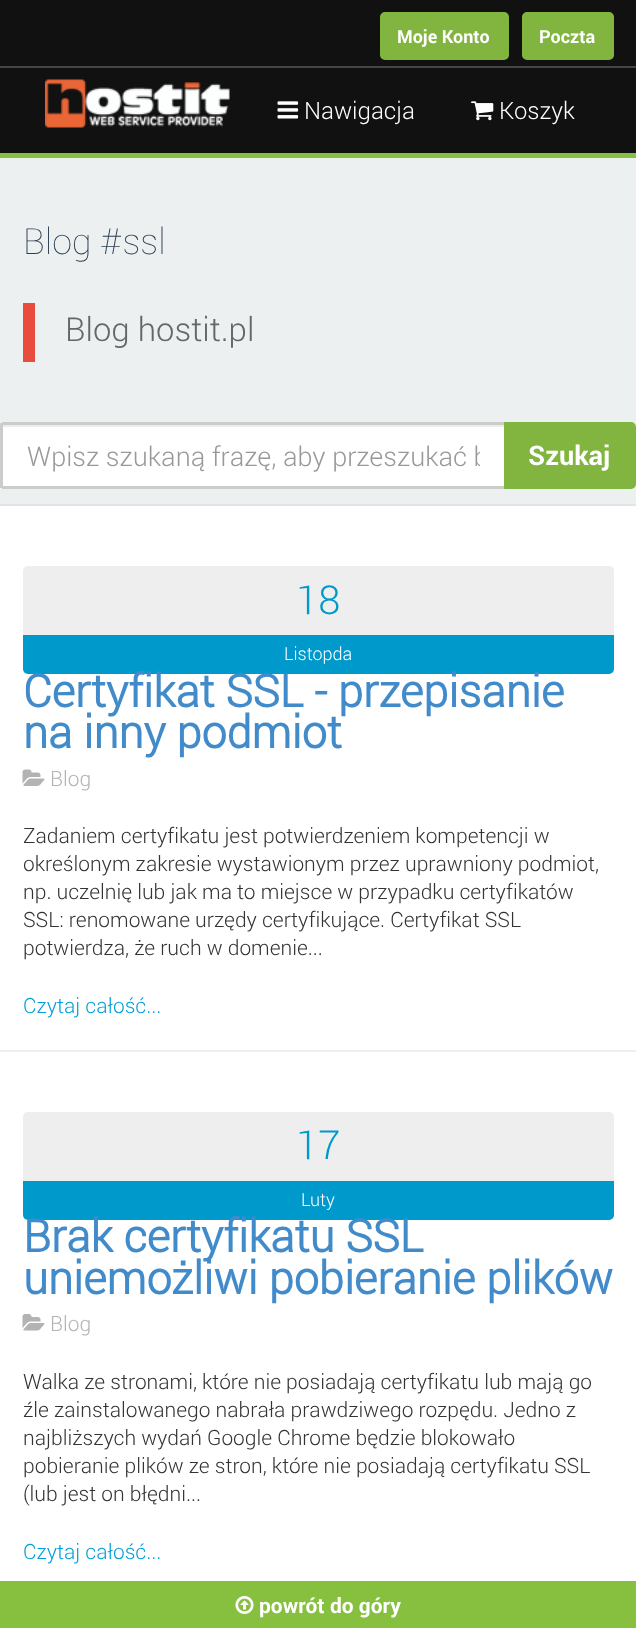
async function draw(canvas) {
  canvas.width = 636
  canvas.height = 1628
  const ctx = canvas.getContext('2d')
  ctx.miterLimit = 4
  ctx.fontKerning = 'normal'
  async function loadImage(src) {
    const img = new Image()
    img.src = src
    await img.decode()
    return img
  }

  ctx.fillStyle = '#fff'
  ctx.fillRect(0, 0, 636, 1628)
  ctx.fillStyle = '#111'
  ctx.fillRect(0, 0, 636, 153)
  ctx.fillStyle = '#87bf3e'
  ctx.fillRect(0, 153, 636, 5)
  ctx.fillStyle = '#82b440'
  ctx.beginPath()
  ctx.roundRect(381.5, 13.5, 126, 45, 3.5)
  ctx.fill()
  ctx.strokeStyle = '#82b440'
  ctx.lineWidth = 3
  ctx.stroke()
  ctx.font = 'bold 18px roboto'
  ctx.fillStyle = '#fff'
  ctx.fillText('Moje Konto', 397, 43)
  ctx.fillStyle = '#82b440'
  ctx.beginPath()
  ctx.roundRect(523.5, 13.5, 89, 45, 3.5)
  ctx.fill()
  ctx.stroke()
  ctx.fillStyle = '#fff'
  ctx.fillText('Poczta', 539, 43)
  ctx.fillStyle = '#464741'
  ctx.fillRect(0, 66, 636, 2)
  ctx.drawImage(await loadImage('image0.png'), 45, 79, 185, 49)
  ctx.drawImage(await loadImage('image1.png'), 277, 101, 22, 18)
  ctx.font = '300 24px Roboto'
  ctx.fillStyle = '#fff'
  ctx.fillText('Nawigacja', 304, 119)
  ctx.drawImage(await loadImage('image2.png'), 471, 101, 23, 20)
  ctx.fillText('Koszyk', 499, 119)
  ctx.fillStyle = '#ecf0f1'
  ctx.fillRect(0, 158, 636, 346)
  ctx.fillStyle = '#e3e3e3'
  ctx.fillRect(0, 504, 636, 2)
  ctx.font = '200 36px Roboto'
  ctx.fillStyle = '#2c3e50'
  ctx.fillText('Blog #ssl', 23, 254)
  ctx.fillStyle = '#e74c3c'
  ctx.fillRect(23, 303, 12, 59)
  ctx.font = '300 33px Roboto'
  ctx.fillStyle = '#666'
  ctx.fillText('Blog hostit.pl', 65, 341)
  ctx.fillStyle = '#82b440'
  ctx.beginPath()
  ctx.roundRect(504, 423, 131, 65, [0, 4, 4, 0])
  ctx.fill()
  ctx.lineWidth = 2
  ctx.stroke()
  ctx.fillStyle = '#fff'
  ctx.beginPath()
  ctx.roundRect(0, 422, 504, 67, [3, 0, 0, 3])
  ctx.fill()
  ctx.fillStyle = '#ececec'
  ctx.fillRect(3, 425, 501, 2)
  ctx.fillStyle = '#ccc'
  ctx.fillRect(2, 422, 502, 3)
  ctx.fillRect(2, 486, 502, 3)
  ctx.fillRect(0, 423, 3, 65)
  ctx.save()
  ctx.beginPath()
  ctx.rect(27, 438, 453, 36)
  ctx.clip()
  ctx.font = '300 27px Roboto'
  ctx.fillStyle = '#999'
  ctx.fillText('Wpisz szukaną frazę, aby przeszukać b', 27, 466)
  ctx.restore()
  ctx.font = 'bold 27px roboto'
  ctx.fillStyle = '#fff'
  ctx.fillText('Szukaj', 528, 465)
  ctx.fillStyle = '#eee'
  ctx.beginPath()
  ctx.roundRect(23, 566, 591, 69, [5, 5, 0, 0])
  ctx.fill()
  ctx.font = '300 40px Roboto'
  ctx.fillStyle = '#09c'
  ctx.fillText('18', 296, 614)
  ctx.beginPath()
  ctx.roundRect(23, 635, 591, 39, [0, 0, 5, 5])
  ctx.fill()
  ctx.font = '300 18px Roboto'
  ctx.fillStyle = '#fff'
  ctx.fillText('Listopda', 284, 660)
  ctx.font = 'bold 45px "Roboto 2"'
  ctx.fillStyle = '#428bca'
  ctx.fillText('Certyfikat SSL - przepisanie', 23, 707)
  ctx.fillText('na inny podmiot', 23, 748)
  ctx.drawImage(await loadImage('image3.png'), 22, 769, 23, 17)
  ctx.font = '300 21px Roboto'
  ctx.fillStyle = '#b3b3b3'
  ctx.fillText('Blog', 50, 786)
  ctx.fillStyle = '#333'
  ctx.fillText('Zadaniem certyfikatu jest potwierdzeniem kompetencji w', 23, 843)
  ctx.fillText('określonym zakresie wystawionym przez uprawniony podmiot,', 23, 871)
  ctx.fillText('np. uczelnię lub jak ma to miejsce w przypadku certyfikatów', 23, 899)
  ctx.fillText('SSL: renomowane urzędy certyfikujące. Certyfikat SSL', 23, 927)
  ctx.fillText('potwierdza, że ruch w domenie...', 23, 955)
  ctx.fillStyle = '#009fda'
  ctx.fillText('Czytaj całość...', 23, 1013)
  ctx.fillStyle = '#eee'
  ctx.fillRect(0, 1050, 636, 2)
  ctx.beginPath()
  ctx.roundRect(23, 1112, 591, 69, [5, 5, 0, 0])
  ctx.fill()
  ctx.font = '300 40px Roboto'
  ctx.fillStyle = '#09c'
  ctx.fillText('17', 296, 1159)
  ctx.beginPath()
  ctx.roundRect(23, 1181, 591, 39, [0, 0, 5, 5])
  ctx.fill()
  ctx.font = '300 18px Roboto'
  ctx.fillStyle = '#fff'
  ctx.fillText('Luty', 301, 1206)
  ctx.font = 'bold 45px "Roboto 2"'
  ctx.fillStyle = '#428bca'
  ctx.fillText('Brak certyfikatu SSL', 23, 1252)
  ctx.fillText('uniemożliwi pobieranie plików', 23, 1294)
  ctx.drawImage(await loadImage('image4.png'), 22, 1314, 23, 17)
  ctx.font = '300 21px Roboto'
  ctx.fillStyle = '#b3b3b3'
  ctx.fillText('Blog', 50, 1331)
  ctx.fillStyle = '#333'
  ctx.fillText('Walka ze stronami, które nie posiadają certyfikatu lub mają go', 23, 1389)
  ctx.fillText('źle zainstalowanego nabrała prawdziwego rozpędu. Jedno z', 23, 1417)
  ctx.fillText('najbliższych wydań Google Chrome będzie blokowało', 23, 1445)
  ctx.fillText('pobieranie plików ze stron, które nie posiadają certyfikatu SSL', 23, 1473)
  ctx.fillText('(lub jest on błędni...', 23, 1501)
  ctx.fillStyle = '#009fda'
  ctx.fillText('Czytaj całość...', 23, 1559)
  ctx.fillStyle = '#87bf3e'
  ctx.fillRect(0, 1581, 636, 47)
  ctx.drawImage(await loadImage('image5.png'), 235, 1596, 19, 18)
  ctx.font = 'bold 21px roboto'
  ctx.fillStyle = '#fff'
  ctx.fillText('powrót do góry', 259, 1613)
}

draw(document.querySelector('canvas'))
